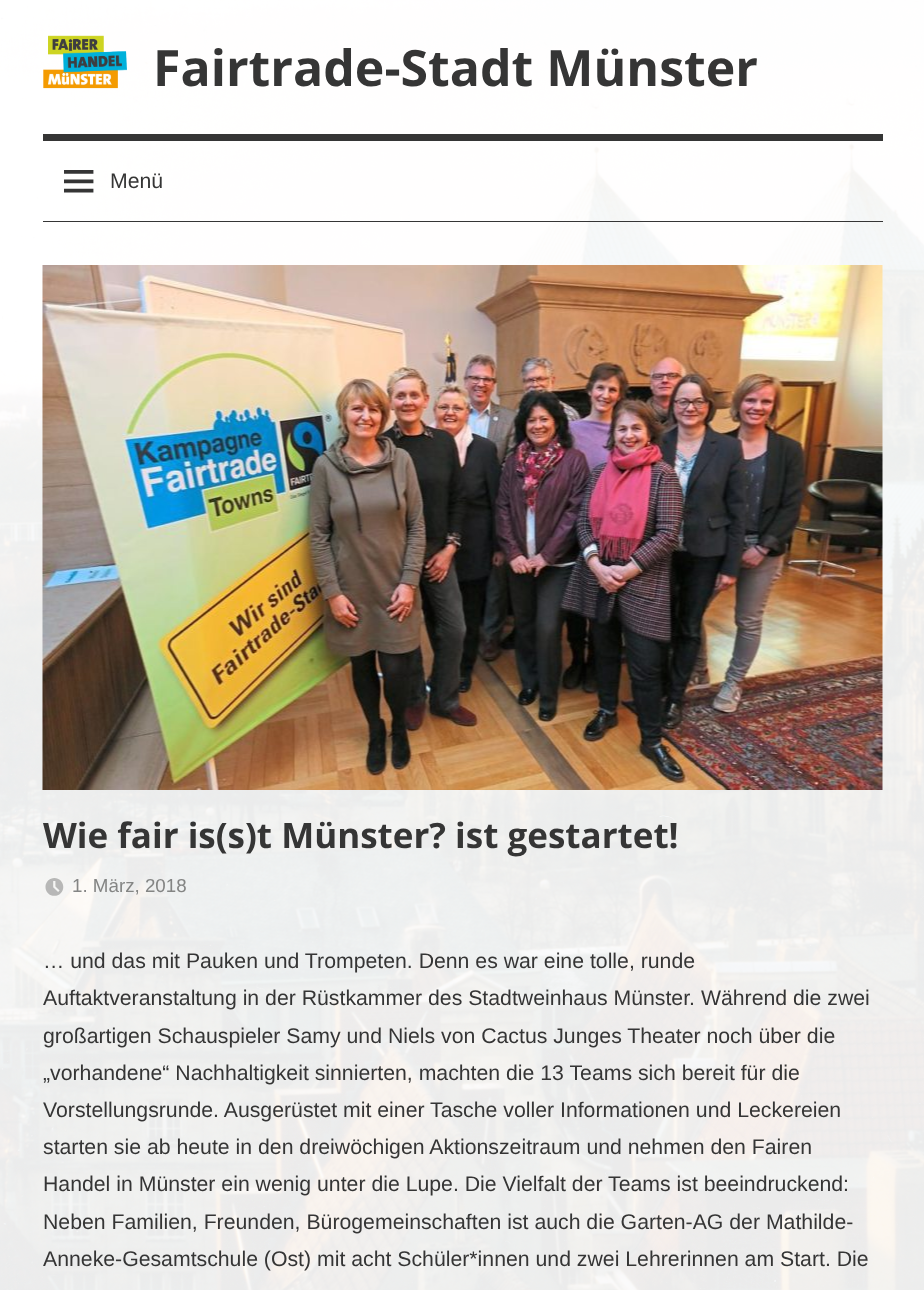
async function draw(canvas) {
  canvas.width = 924
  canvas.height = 1290
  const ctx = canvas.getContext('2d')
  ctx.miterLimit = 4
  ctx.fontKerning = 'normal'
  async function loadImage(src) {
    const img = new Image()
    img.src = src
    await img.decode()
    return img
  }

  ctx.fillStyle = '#fff'
  ctx.fillRect(0, 0, 924, 1290)
  ctx.drawImage(await loadImage('image0.png'), 0, 0, 924, 1290)
  ctx.drawImage(await loadImage('image1.png'), 43, 35, 84, 54)
  ctx.font = 'bold 50px Open Sans'
  ctx.fillStyle = '#353535'
  ctx.fillText('Fairtrade-Stadt Münster', 153, 86)
  ctx.fillRect(43, 134, 840, 7)
  ctx.fillRect(43, 221, 840, 1)
  ctx.drawImage(await loadImage('image2.png'), 64, 170, 30, 23)
  ctx.font = '21.25px Liberation Sans'
  ctx.fillText('Menü', 110, 188)
  ctx.drawImage(await loadImage('image3.png'), 42, 265, 841, 525)
  ctx.font = 'bold 35px Open Sans'
  ctx.fillText('Wie fair is(s)t Münster? ist gestartet!', 43, 848)
  ctx.drawImage(await loadImage('image4.png'), 45, 878, 19, 18)
  ctx.font = '18.75px Liberation Sans'
  ctx.fillStyle = '#848584'
  ctx.fillText('1. März, 2018', 72, 892)
  ctx.font = '21.25px Liberation Sans'
  ctx.fillStyle = '#353535'
  ctx.fillText('… und das mit Pauken und Trompeten. Denn es war eine tolle, runde', 43, 968)
  ctx.fillText('Auftaktveranstaltung in der Rüstkammer des Stadtweinhaus Münster. Während die zwei', 43, 1005)
  ctx.fillText('großartigen Schauspieler Samy und Niels von Cactus Junges Theater noch über die', 43, 1043)
  ctx.fillText('„vorhandene“ Nachhaltigkeit sinnierten, machten die 13 Teams sich bereit für die', 43, 1080)
  ctx.fillText('Vorstellungsrunde. Ausgerüstet mit einer Tasche voller Informationen und Leckereien', 43, 1117)
  ctx.fillText('starten sie ab heute in den dreiwöchigen Aktionszeitraum und nehmen den Fairen', 43, 1154)
  ctx.fillText('Handel in Münster ein wenig unter die Lupe. Die Vielfalt der Teams ist beeindruckend:', 43, 1191)
  ctx.fillText('Neben Familien, Freunden, Bürogemeinschaften ist auch die Garten-AG der Mathilde-', 43, 1229)
  ctx.fillText('Anneke-Gesamtschule (Ost) mit acht Schüler*innen und zwei Lehrerinnen am Start. Die', 43, 1266)
}

draw(document.querySelector('canvas'))
